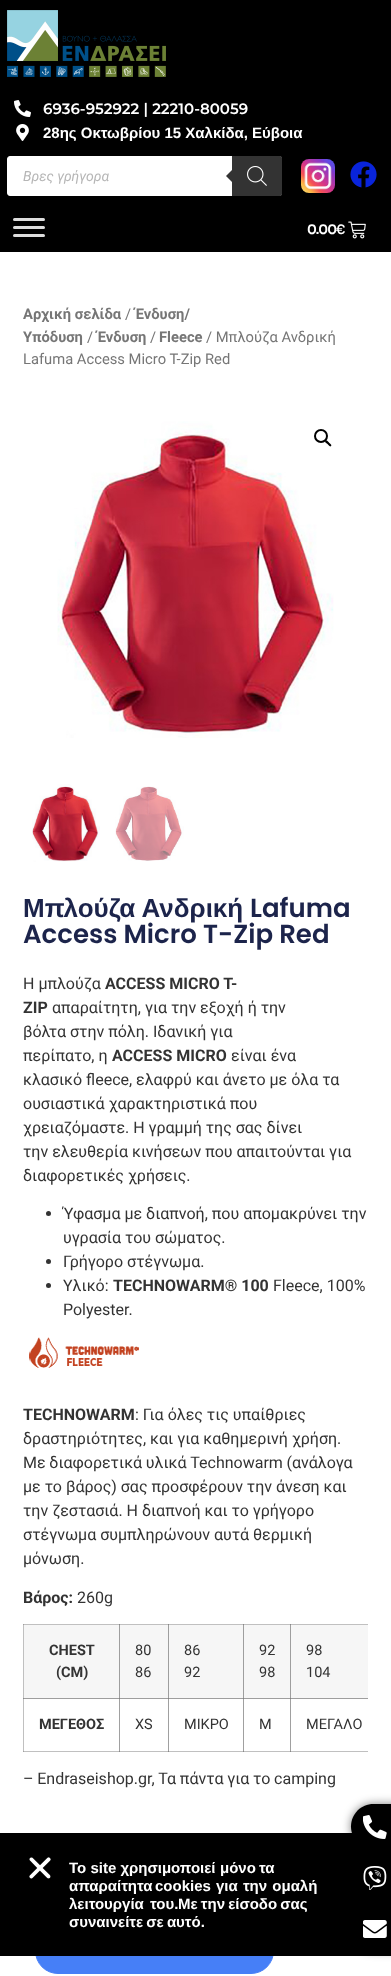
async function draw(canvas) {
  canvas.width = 391
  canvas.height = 1976
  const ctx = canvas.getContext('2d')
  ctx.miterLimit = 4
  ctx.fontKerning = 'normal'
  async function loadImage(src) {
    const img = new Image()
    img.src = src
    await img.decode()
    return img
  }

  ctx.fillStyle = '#fff'
  ctx.fillRect(0, 0, 391, 1976)
  ctx.fillStyle = '#c0c0c0'
  ctx.fillRect(23, 1624, 1, 128)
  ctx.fillRect(23, 1624, 345, 1)
  ctx.fillStyle = '#a0a0a0'
  ctx.fillRect(23, 1624, 1, 1)
  ctx.fillStyle = '#888'
  ctx.fillRect(119, 1624, 1, 1)
  ctx.fillRect(168, 1624, 1, 1)
  ctx.fillRect(243, 1624, 1, 1)
  ctx.fillStyle = '#c0c0c0'
  ctx.fillRect(23, 1751, 97, 1)
  ctx.fillStyle = '#a0a0a0'
  ctx.fillRect(23, 1751, 1, 1)
  ctx.fillStyle = '#888'
  ctx.fillRect(23, 1698, 1, 1)
  ctx.fillStyle = '#a0a0a0'
  ctx.fillRect(119, 1698, 1, 54)
  ctx.fillStyle = '#c0c0c0'
  ctx.fillRect(119, 1751, 50, 1)
  ctx.fillStyle = '#888'
  ctx.fillRect(119, 1751, 1, 1)
  ctx.fillStyle = '#a0a0a0'
  ctx.fillRect(168, 1698, 1, 54)
  ctx.fillStyle = '#c0c0c0'
  ctx.fillRect(168, 1751, 76, 1)
  ctx.fillStyle = '#888'
  ctx.fillRect(168, 1751, 1, 1)
  ctx.fillStyle = '#a0a0a0'
  ctx.fillRect(243, 1698, 1, 54)
  ctx.fillStyle = '#c0c0c0'
  ctx.fillRect(243, 1751, 48, 1)
  ctx.fillStyle = '#888'
  ctx.fillRect(243, 1751, 1, 1)
  ctx.fillStyle = '#a0a0a0'
  ctx.fillRect(290, 1698, 1, 54)
  ctx.fillStyle = '#000'
  ctx.fillRect(0, 0, 391, 252)
  ctx.drawImage(await loadImage('image0.png'), 7, 10, 159, 67)
  ctx.drawImage(await loadImage('image1.png'), 14, 100, 17, 17)
  ctx.font = '600 15px Montserrat'
  ctx.fillStyle = '#fff'
  ctx.fillText('6936-952922 | 22210-80059', 43, 114)
  ctx.drawImage(await loadImage('image2.png'), 16, 124, 13, 17)
  ctx.font = 'bold 15px Liberation Sans'
  ctx.fillText('28ης Οκτωβρίου 15 Χαλκίδα, Εύβοια', 43, 138)
  ctx.beginPath()
  ctx.roundRect(7.5, 156.5, 274, 39, 2.5)
  ctx.fill()
  ctx.strokeStyle = '#fff'
  ctx.stroke()
  ctx.font = 'italic 14px Roboto'
  ctx.fillStyle = '#b6b6b6'
  ctx.fillText('Βρες γρήγορα', 23, 181)
  ctx.fillStyle = '#333'
  ctx.beginPath()
  ctx.roundRect(232, 156, 50, 40, [0, 2, 2, 0])
  ctx.fill()
  ctx.beginPath()
  ctx.moveTo(234, 168)
  ctx.lineTo(234, 184)
  ctx.lineTo(226, 176)
  ctx.closePath()
  ctx.fill()
  ctx.drawImage(await loadImage('image3.png'), 247, 166, 20, 20)
  ctx.drawImage(await loadImage('image4.png'), 301, 159, 34, 34)
  ctx.drawImage(await loadImage('image5.png'), 350, 161, 27, 27)
  ctx.fillStyle = '#ddd'
  ctx.beginPath()
  ctx.roundRect(13, 218, 32, 3, 1.5)
  ctx.fill()
  ctx.beginPath()
  ctx.roundRect(13, 226, 32, 3, 1.5)
  ctx.fill()
  ctx.beginPath()
  ctx.roundRect(13, 234, 32, 3, 1.5)
  ctx.fill()
  ctx.letterSpacing = '-1px'
  ctx.font = '600 13px Sora'
  ctx.fillStyle = '#fff'
  ctx.fillText('0.00€', 307, 234)
  ctx.drawImage(await loadImage('image6.png'), 348, 221, 18, 18)
  ctx.letterSpacing = '0px'
  ctx.font = 'bold 14.75px Roboto'
  ctx.fillStyle = '#767676'
  ctx.fillText('Αρχική σελίδα', 23, 319)
  ctx.font = '14.75px Roboto'
  ctx.fillText('/', 125, 319)
  ctx.font = 'bold 14.75px Roboto'
  ctx.fillText('Ένδυση/', 135, 319)
  ctx.fillText('Υπόδυση', 23, 342)
  ctx.font = '14.75px Roboto'
  ctx.fillText('/', 87, 342)
  ctx.font = 'bold 14.75px Roboto'
  ctx.fillText('Ένδυση', 97, 342)
  ctx.font = '14.75px Roboto'
  ctx.fillText('/', 150, 342)
  ctx.font = 'bold 14.75px Roboto'
  ctx.fillText('Fleece', 159, 342)
  ctx.font = '14.75px Roboto'
  ctx.fillText('/ Μπλούζα Ανδρική', 206, 342)
  ctx.fillText('Lafuma Access Micro T-Zip Red', 23, 364)
  ctx.drawImage(await loadImage('image7.png'), 57, 421, 277, 317)
  ctx.beginPath()
  ctx.arc(321, 436, 6, 0, 2 * Math.PI)
  ctx.strokeStyle = '#000'
  ctx.lineWidth = 2
  ctx.stroke()
  ctx.fillStyle = '#000'
  ctx.beginPath()
  ctx.moveTo(325.5, 440.5)
  ctx.bezierCurveTo(326.5, 439.5, 328.5, 442, 329, 442.5)
  ctx.bezierCurveTo(329.5, 443.5, 332.5, 445, 331, 446)
  ctx.bezierCurveTo(330, 447.5, 328, 444.5, 327.5, 444)
  ctx.bezierCurveTo(327, 443.5, 324, 442, 325.5, 440.5)
  ctx.closePath()
  ctx.fill()
  ctx.drawImage(await loadImage('image8.png'), 32, 784, 68, 78)
  ctx.drawImage(await loadImage('image9.png'), 115, 786, 69, 75)
  ctx.font = 'bold 26px Liberation Sans'
  ctx.fillStyle = '#1c244b'
  ctx.fillText('Μπλούζα Ανδρική', 23, 917)
  ctx.font = '600 26px Poppins'
  ctx.fillText('Lafuma', 250, 917)
  ctx.fillText('Access Micro T-Zip Red', 23, 943)
  ctx.font = '16px Roboto'
  ctx.fillStyle = '#333'
  ctx.fillText('Η μπλούζα', 23, 989)
  ctx.font = 'bold 16px Roboto'
  ctx.fillText('ACCESS MICRO T-', 105, 989)
  ctx.fillText('ZIP', 23, 1013)
  ctx.font = '16px Roboto'
  ctx.fillText('απαραίτητη, για την εξοχή ή την', 52, 1013)
  ctx.fillText('βόλτα στην πόλη. Ιδανική για', 23, 1037)
  ctx.fillText('περίπατο, η', 23, 1061)
  ctx.font = 'bold 16px Roboto'
  ctx.fillText('ACCESS MICRO', 112, 1061)
  ctx.font = '16px Roboto'
  ctx.fillText('είναι ένα', 231, 1061)
  ctx.fillText('κλασικό fleece, ελαφρύ και άνετο με όλα τα', 23, 1085)
  ctx.fillText('ουσιαστικά χαρακτηριστικά που', 23, 1109)
  ctx.fillText('χρειαζόμαστε. Η γραμμή της σας δίνει', 23, 1133)
  ctx.fillText('την ελευθερία κινήσεων που απαιτούνται για', 23, 1157)
  ctx.fillText('διαφορετικές χρήσεις.', 23, 1181)
  ctx.beginPath()
  ctx.arc(48.5, 1213.5, 2.5, 0, 2 * Math.PI)
  ctx.fill()
  ctx.fillText('Ύφασμα με διαπνοή, που απομακρύνει την', 63, 1219)
  ctx.fillText('υγρασία του σώματος.', 63, 1243)
  ctx.beginPath()
  ctx.arc(48.5, 1261.5, 2.5, 0, 2 * Math.PI)
  ctx.fill()
  ctx.fillText('Γρήγορο στέγνωμα.', 63, 1267)
  ctx.beginPath()
  ctx.arc(48.5, 1285.5, 2.5, 0, 2 * Math.PI)
  ctx.fill()
  ctx.fillText('Υλικό:', 63, 1291)
  ctx.font = 'bold 16px Roboto'
  ctx.fillText('TECHNOWARM® 100', 113, 1291)
  ctx.font = '16px Roboto'
  ctx.fillText('Fleece, 100%', 273, 1291)
  ctx.fillText('Polyester.', 63, 1315)
  ctx.drawImage(await loadImage('image10.png'), 29, 1337, 110, 31)
  ctx.font = 'bold 16px Roboto'
  ctx.fillText('TECHNOWARM', 23, 1420)
  ctx.font = '16px Roboto'
  ctx.fillText(': Για όλες τις υπαίθριες', 135, 1420)
  ctx.fillText('δραστηριότητες, και για καθημερινή χρήση.', 23, 1444)
  ctx.wordSpacing = '-0.25px'
  ctx.fillText('Με διαφορετικά υλικά Technowarm (ανάλογα', 23, 1468)
  ctx.wordSpacing = '0px'
  ctx.fillText('με το βάρος) σας προσφέρουν την άνεση και', 23, 1492)
  ctx.fillText('την ζεστασιά. Η διαπνοή και το γρήγορο', 23, 1516)
  ctx.fillText('στέγνωμα συμπληρώνουν αυτά θερμική', 23, 1540)
  ctx.fillText('μόνωση.', 23, 1564)
  ctx.font = 'bold 16px Roboto'
  ctx.fillText('Βάρος:', 23, 1603)
  ctx.font = '16px Roboto'
  ctx.fillText('260g', 77, 1603)
  ctx.fillStyle = '#f6f6f6'
  ctx.fillRect(24, 1625, 95, 73)
  ctx.fillStyle = '#9e9e9e'
  ctx.fillRect(119, 1625, 1, 74)
  ctx.fillRect(24, 1698, 144, 1)
  ctx.fillStyle = '#818181'
  ctx.fillRect(119, 1698, 1, 1)
  ctx.font = 'bold 14.5px Roboto'
  ctx.fillStyle = '#333'
  ctx.fillText('CHEST', 49, 1655)
  ctx.fillText('(CM)', 56, 1677)
  ctx.fillStyle = '#f6f6f6'
  ctx.fillRect(120, 1625, 48, 73)
  ctx.font = '14.5px Roboto'
  ctx.fillStyle = '#333'
  ctx.fillText('80', 135, 1655)
  ctx.fillText('86', 135, 1677)
  ctx.fillStyle = '#f6f6f6'
  ctx.fillRect(169, 1625, 74, 73)
  ctx.fillStyle = '#9e9e9e'
  ctx.fillRect(168, 1625, 1, 74)
  ctx.fillRect(243, 1625, 1, 74)
  ctx.fillRect(168, 1698, 76, 1)
  ctx.fillStyle = '#818181'
  ctx.fillRect(168, 1698, 1, 1)
  ctx.fillRect(243, 1698, 1, 1)
  ctx.fillStyle = '#333'
  ctx.fillText('86', 184, 1655)
  ctx.fillText('92', 184, 1677)
  ctx.fillStyle = '#f6f6f6'
  ctx.fillRect(244, 1625, 46, 73)
  ctx.fillStyle = '#9e9e9e'
  ctx.fillRect(290, 1625, 1, 74)
  ctx.fillRect(244, 1698, 124, 1)
  ctx.fillStyle = '#333'
  ctx.fillText('92', 259, 1655)
  ctx.fillText('98', 259, 1677)
  ctx.fillStyle = '#f6f6f6'
  ctx.fillRect(291, 1625, 77, 73)
  ctx.fillStyle = '#888'
  ctx.fillRect(290, 1624, 1, 1)
  ctx.fillStyle = '#333'
  ctx.fillText('98', 306, 1655)
  ctx.fillText('104', 306, 1677)
  ctx.font = 'bold 14.5px Roboto'
  ctx.fillText('ΜΕΓΕΘΟΣ', 39, 1729)
  ctx.font = '14.5px Roboto'
  ctx.fillText('XS', 135, 1729)
  ctx.fillText('ΜΙΚΡΟ', 184, 1729)
  ctx.fillText('Μ', 259, 1729)
  ctx.fillStyle = '#818181'
  ctx.fillRect(290, 1698, 1, 1)
  ctx.fillStyle = '#c0c0c0'
  ctx.fillRect(290, 1751, 78, 1)
  ctx.fillStyle = '#888'
  ctx.fillRect(290, 1751, 1, 1)
  ctx.fillStyle = '#333'
  ctx.fillText('ΜΕΓΑΛΟ', 306, 1729)
  ctx.wordSpacing = '-0.25px'
  ctx.font = '16px Roboto'
  ctx.fillText('– Endraseishop.gr, Τα πάντα για το camping', 23, 1784)
  ctx.fillStyle = '#467ff7'
  ctx.beginPath()
  ctx.roundRect(35.5, 1928.5, 238, 45, 22.5)
  ctx.fill()
  ctx.strokeStyle = '#467ff7'
  ctx.lineWidth = 1
  ctx.stroke()
  ctx.fillStyle = '#000'
  ctx.fillRect(0, 1833, 391, 123)
  ctx.drawImage(await loadImage('image11.png'), 29, 1857, 22, 22)
  ctx.wordSpacing = '0px'
  ctx.font = 'bold 15px Liberation Sans'
  ctx.fillStyle = '#fff'
  ctx.fillText('Το site χρησιμοποιεί', 69, 1873)
  ctx.wordSpacing = '-1px'
  ctx.fillText('μόνο τα', 220, 1873)
  ctx.wordSpacing = '0px'
  ctx.fillText('απαραίτητα', 69, 1891)
  ctx.wordSpacing = '1px'
  ctx.fillText('cookies για την ομαλή', 155, 1891)
  ctx.wordSpacing = '2px'
  ctx.fillText('λειτουργία του.', 69, 1909)
  ctx.wordSpacing = '-1px'
  ctx.fillText('Με την είσοδο σας', 178, 1909)
  ctx.fillText('συναινείτε σε αυτό.', 69, 1927)
  ctx.fillStyle = '#00000080'
  ctx.filter = 'blur(5px)'
  ctx.beginPath()
  ctx.roundRect(351, 1804, 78, 45, 22.5)
  ctx.fill()
  ctx.filter = 'none'
  ctx.fillStyle = '#000'
  ctx.beginPath()
  ctx.moveTo(373.5, 1804)
  ctx.lineTo(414, 1804)
  ctx.lineTo(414, 1849)
  ctx.lineTo(373.5, 1849)
  ctx.bezierCurveTo(361, 1849, 351, 1839, 351, 1826.5)
  ctx.bezierCurveTo(351, 1814, 361, 1804, 373.5, 1804)
  ctx.closePath()
  ctx.fill()
  ctx.drawImage(await loadImage('image12.png'), 363, 1815, 24, 24)
  ctx.drawImage(await loadImage('image13.png'), 363, 1866, 24, 24)
  ctx.save()
  ctx.beginPath()
  ctx.moveTo(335, 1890)
  ctx.lineTo(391, 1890)
  ctx.lineTo(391, 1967)
  ctx.lineTo(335, 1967)
  ctx.closePath()
  ctx.moveTo(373.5, 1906)
  ctx.lineTo(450, 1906)
  ctx.lineTo(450, 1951)
  ctx.lineTo(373.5, 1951)
  ctx.bezierCurveTo(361, 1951, 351, 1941, 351, 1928.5)
  ctx.bezierCurveTo(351, 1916, 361, 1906, 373.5, 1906)
  ctx.closePath()
  ctx.clip('evenodd')
  ctx.fillStyle = '#00000080'
  ctx.filter = 'blur(5px)'
  ctx.beginPath()
  ctx.roundRect(351, 1906, 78, 45, 22.5)
  ctx.fill()
  ctx.filter = 'none'
  ctx.restore()
  ctx.drawImage(await loadImage('image14.png'), 363, 1920, 24, 18)
}

draw(document.querySelector('canvas'))
